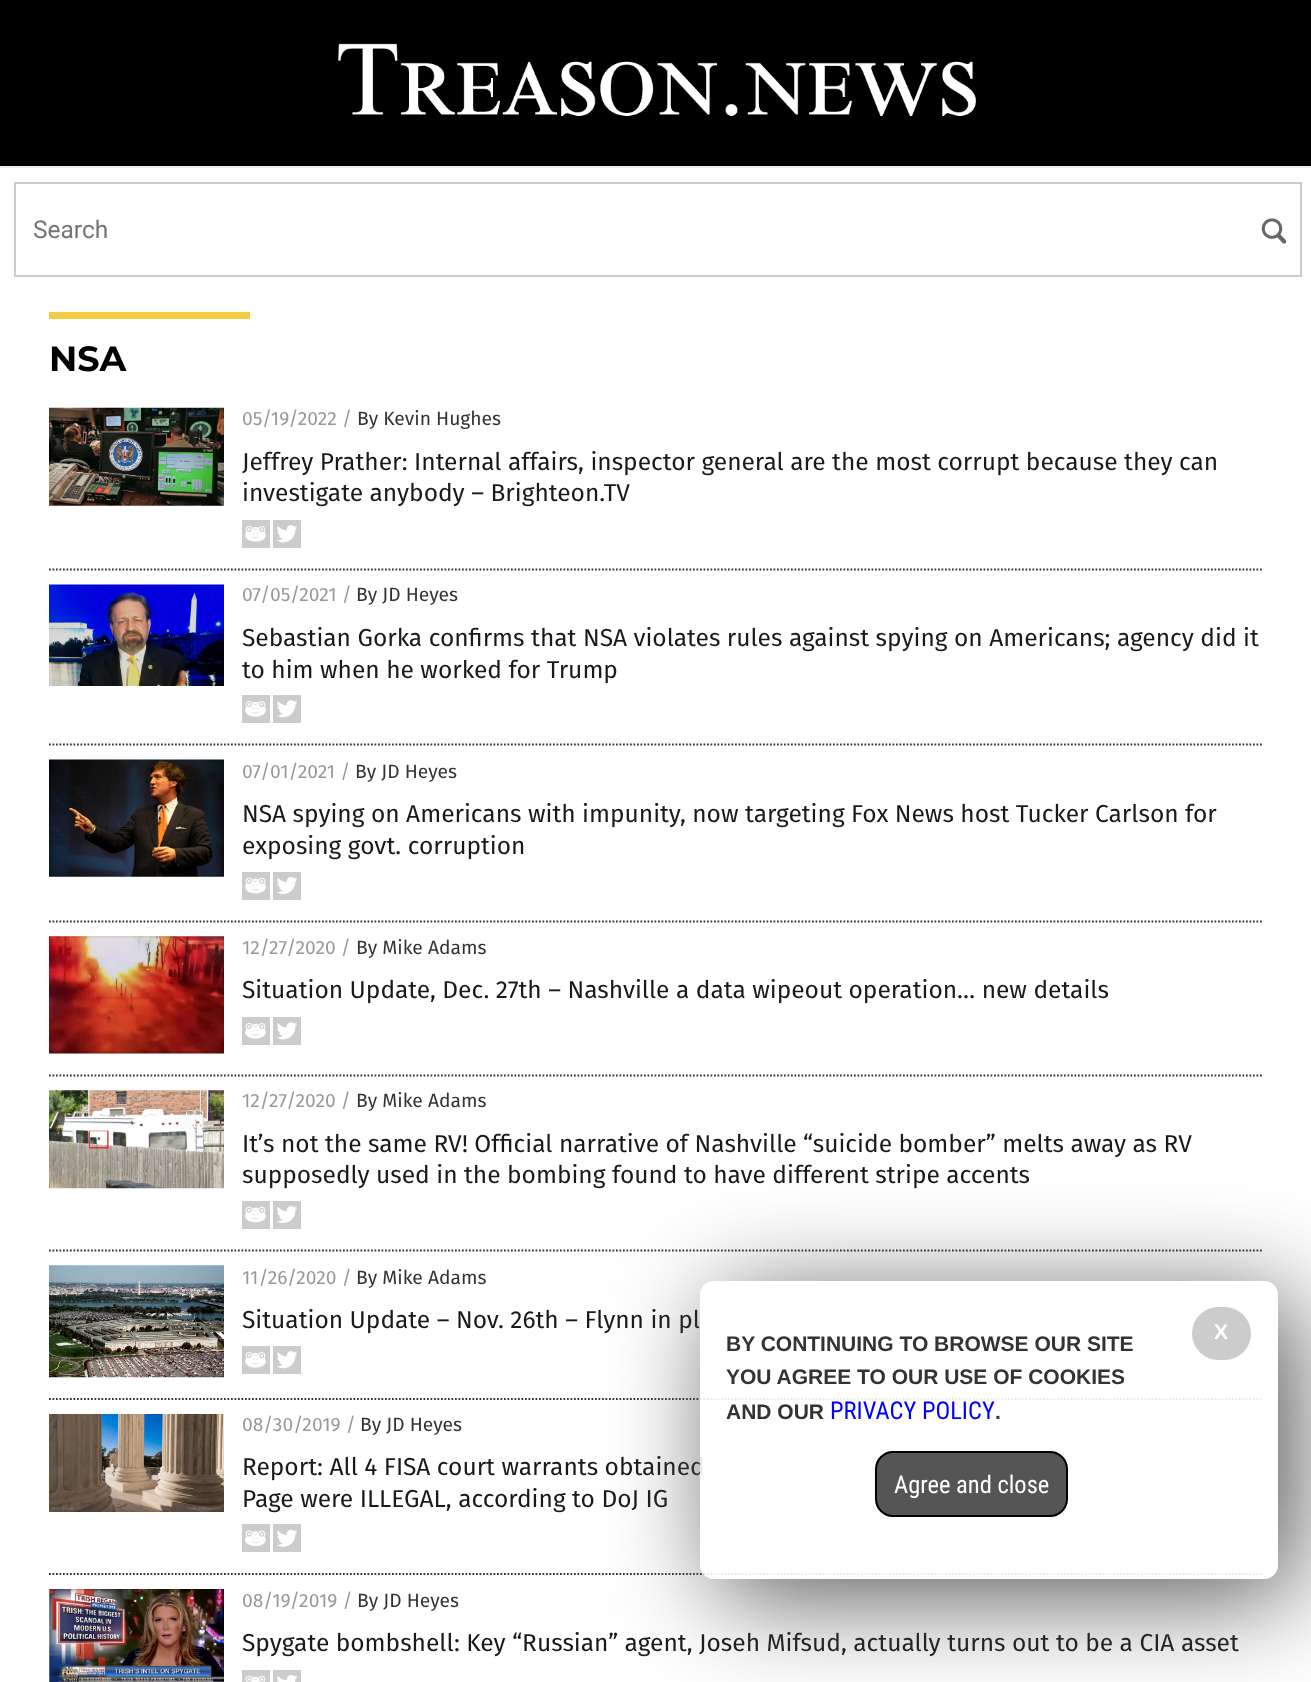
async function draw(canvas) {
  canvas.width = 1311
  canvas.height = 1682
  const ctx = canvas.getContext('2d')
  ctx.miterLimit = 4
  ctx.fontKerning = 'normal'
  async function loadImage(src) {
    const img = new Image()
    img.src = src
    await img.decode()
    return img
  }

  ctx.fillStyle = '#000'
  ctx.fillRect(0, 0, 1311, 1682)
  ctx.drawImage(await loadImage('image0.png'), 337, 43, 639, 73)
  ctx.fillStyle = '#fff'
  ctx.fillRect(0, 168, 1311, 1514)
  ctx.fillStyle = '#ececec'
  ctx.fillRect(0, 166, 1311, 2)
  ctx.strokeStyle = '#ccc'
  ctx.lineWidth = 2
  ctx.strokeRect(15, 183, 1286, 93)
  ctx.font = '24.5px Roboto'
  ctx.fillStyle = '#757575'
  ctx.fillText('Search', 33, 238)
  ctx.drawImage(await loadImage('image1.png'), 1261, 218, 26, 26)
  ctx.fillStyle = '#f5ca45'
  ctx.fillRect(49, 312, 201, 7)
  ctx.font = 'bold 35px Montserrat'
  ctx.fillStyle = '#000'
  ctx.fillText('NSA', 49, 371)
  ctx.beginPath()
  ctx.moveTo(49, 569.5)
  ctx.lineTo(1263.5, 569.5)
  ctx.strokeStyle = '#343434'
  ctx.lineWidth = 1.8
  ctx.setLineDash([1.75, 1.75])
  ctx.stroke()
  ctx.drawImage(await loadImage('image2.png'), 49, 407, 175, 99)
  ctx.font = '19.25px Fira Sans'
  ctx.fillStyle = '#999'
  ctx.fillText('05/19/2022 /', 242, 425)
  ctx.fillStyle = '#333'
  ctx.fillText('By Kevin Hughes', 357, 425)
  ctx.font = '24.5px Fira Sans'
  ctx.fillStyle = '#1a1a1a'
  ctx.fillText('Jeffrey Prather: Internal affairs, inspector general are the most corrupt because they can', 242, 470)
  ctx.fillText('investigate anybody – Brighteon.TV', 242, 501)
  ctx.drawImage(await loadImage('image3.png'), 242, 520, 28, 28)
  ctx.drawImage(await loadImage('image4.png'), 273, 520, 28, 28)
  ctx.beginPath()
  ctx.moveTo(49, 744.5)
  ctx.lineTo(1263.5, 744.5)
  ctx.stroke()
  ctx.drawImage(await loadImage('image5.png'), 49, 584, 175, 102)
  ctx.font = '19.25px Fira Sans'
  ctx.fillStyle = '#999'
  ctx.fillText('07/05/2021 /', 242, 601)
  ctx.fillStyle = '#333'
  ctx.fillText('By JD Heyes', 356, 601)
  ctx.font = '24.5px Fira Sans'
  ctx.fillStyle = '#1a1a1a'
  ctx.fillText('Sebastian Gorka confirms that NSA violates rules against spying on Americans; agency did it', 242, 646)
  ctx.fillText('to him when he worked for Trump', 242, 678)
  ctx.drawImage(await loadImage('image3.png'), 242, 695, 28, 28)
  ctx.drawImage(await loadImage('image4.png'), 273, 695, 28, 28)
  ctx.beginPath()
  ctx.moveTo(49, 921.5)
  ctx.lineTo(1263.5, 921.5)
  ctx.stroke()
  ctx.drawImage(await loadImage('image6.png'), 49, 759, 175, 118)
  ctx.font = '19.25px Fira Sans'
  ctx.fillStyle = '#999'
  ctx.fillText('07/01/2021 /', 242, 778)
  ctx.fillStyle = '#333'
  ctx.fillText('By JD Heyes', 355, 778)
  ctx.font = '24.5px Fira Sans'
  ctx.fillStyle = '#1a1a1a'
  ctx.fillText('NSA spying on Americans with impunity, now targeting Fox News host Tucker Carlson for', 242, 822)
  ctx.fillText('exposing govt. corruption', 242, 854)
  ctx.drawImage(await loadImage('image7.png'), 242, 872, 28, 28)
  ctx.drawImage(await loadImage('image8.png'), 273, 872, 28, 28)
  ctx.beginPath()
  ctx.moveTo(49, 1075.5)
  ctx.lineTo(1263.5, 1075.5)
  ctx.stroke()
  ctx.drawImage(await loadImage('image9.png'), 49, 936, 175, 118)
  ctx.font = '19.25px Fira Sans'
  ctx.fillStyle = '#999'
  ctx.fillText('12/27/2020 /', 242, 954)
  ctx.fillStyle = '#333'
  ctx.fillText('By Mike Adams', 356, 954)
  ctx.font = '24.5px Fira Sans'
  ctx.fillStyle = '#1a1a1a'
  ctx.fillText('Situation Update, Dec. 27th – Nashville a data wipeout operation… new details', 242, 998)
  ctx.drawImage(await loadImage('image3.png'), 242, 1017, 28, 28)
  ctx.drawImage(await loadImage('image4.png'), 273, 1017, 28, 28)
  ctx.beginPath()
  ctx.moveTo(49, 1250.5)
  ctx.lineTo(1263.5, 1250.5)
  ctx.stroke()
  ctx.drawImage(await loadImage('image10.png'), 49, 1090, 175, 99)
  ctx.font = '19.25px Fira Sans'
  ctx.fillStyle = '#999'
  ctx.fillText('12/27/2020 /', 242, 1107)
  ctx.fillStyle = '#333'
  ctx.fillText('By Mike Adams', 356, 1107)
  ctx.font = '24.5px Fira Sans'
  ctx.fillStyle = '#1a1a1a'
  ctx.fillText('It’s not the same RV! Official narrative of Nashville “suicide bomber” melts away as RV', 242, 1152)
  ctx.fillText('supposedly used in the bombing found to have different stripe accents', 242, 1183)
  ctx.drawImage(await loadImage('image7.png'), 242, 1201, 28, 28)
  ctx.drawImage(await loadImage('image8.png'), 273, 1201, 28, 28)
  ctx.beginPath()
  ctx.moveTo(49, 1399)
  ctx.lineTo(1263.5, 1399)
  ctx.stroke()
  ctx.drawImage(await loadImage('image11.png'), 49, 1265, 175, 113)
  ctx.font = '19.25px Fira Sans'
  ctx.fillStyle = '#999'
  ctx.fillText('11/26/2020 /', 242, 1284)
  ctx.fillStyle = '#333'
  ctx.fillText('By Mike Adams', 356, 1284)
  ctx.font = '24.5px Fira Sans'
  ctx.fillStyle = '#1a1a1a'
  ctx.fillText('Situation Update – Nov. 26th – Flynn in pl', 242, 1328)
  ctx.drawImage(await loadImage('image3.png'), 242, 1346, 28, 28)
  ctx.drawImage(await loadImage('image4.png'), 273, 1346, 28, 28)
  ctx.beginPath()
  ctx.moveTo(49, 1574)
  ctx.lineTo(1263.5, 1574)
  ctx.stroke()
  ctx.drawImage(await loadImage('image12.png'), 49, 1414, 175, 98)
  ctx.font = '19.25px Fira Sans'
  ctx.fillStyle = '#999'
  ctx.fillText('08/30/2019 /', 242, 1431)
  ctx.fillStyle = '#333'
  ctx.fillText('By JD Heyes', 360, 1431)
  ctx.font = '24.5px Fira Sans'
  ctx.fillStyle = '#1a1a1a'
  ctx.fillText('Report: All 4 FISA court warrants obtained', 242, 1475)
  ctx.fillText('Page were ILLEGAL, according to DoJ IG', 242, 1507)
  ctx.drawImage(await loadImage('image13.png'), 242, 1524, 28, 28)
  ctx.drawImage(await loadImage('image14.png'), 273, 1524, 28, 28)
  ctx.drawImage(await loadImage('image15.png'), 49, 1589, 175, 93)
  ctx.font = '19.25px Fira Sans'
  ctx.fillStyle = '#999'
  ctx.fillText('08/19/2019 /', 242, 1607)
  ctx.fillStyle = '#333'
  ctx.fillText('By JD Heyes', 357, 1607)
  ctx.font = '24.5px Fira Sans'
  ctx.fillStyle = '#1a1a1a'
  ctx.fillText('Spygate bombshell: Key “Russian” agent, Joseh Mifsud, actually turns out to be a CIA asset', 242, 1651)
  ctx.drawImage(await loadImage('image16.png'), 242, 1670, 28, 12)
  ctx.drawImage(await loadImage('image17.png'), 273, 1670, 28, 12)
  ctx.save()
  ctx.beginPath()
  ctx.moveTo(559, 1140)
  ctx.lineTo(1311, 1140)
  ctx.lineTo(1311, 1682)
  ctx.lineTo(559, 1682)
  ctx.closePath()
  ctx.moveTo(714, 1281)
  ctx.lineTo(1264, 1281)
  ctx.bezierCurveTo(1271.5, 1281, 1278, 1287.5, 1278, 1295)
  ctx.lineTo(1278, 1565)
  ctx.bezierCurveTo(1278, 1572.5, 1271.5, 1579, 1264, 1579)
  ctx.lineTo(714, 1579)
  ctx.bezierCurveTo(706.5, 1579, 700, 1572.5, 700, 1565)
  ctx.lineTo(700, 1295)
  ctx.bezierCurveTo(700, 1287.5, 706.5, 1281, 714, 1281)
  ctx.closePath()
  ctx.clip('evenodd')
  ctx.fillStyle = '#555'
  ctx.filter = 'blur(52.5px)'
  ctx.beginPath()
  ctx.roundRect(718, 1299, 577, 297, 14)
  ctx.fill()
  ctx.filter = 'none'
  ctx.restore()
  ctx.fillStyle = '#ffffffe6'
  ctx.beginPath()
  ctx.roundRect(700, 1281, 578, 298, 14)
  ctx.fill()
  ctx.fillStyle = '#ccc'
  ctx.beginPath()
  ctx.roundRect(1192, 1307, 59, 53, 26.5)
  ctx.fill()
  ctx.font = 'bold 21px Liberation Sans'
  ctx.fillStyle = '#fff'
  ctx.fillText('X', 1214, 1339)
  ctx.fillStyle = '#333'
  ctx.fillText('BY CONTINUING TO BROWSE OUR SITE', 726, 1351)
  ctx.fillText('YOU AGREE TO OUR USE OF COOKIES', 726, 1384)
  ctx.fillText('AND OUR', 726, 1419)
  ctx.font = '24.5px Roboto Condensed'
  ctx.fillStyle = '#00f'
  ctx.fillText('PRIVACY POLICY', 830, 1419)
  ctx.font = 'bold 21px Liberation Sans'
  ctx.fillStyle = '#333'
  ctx.fillText('.', 995, 1419)
  ctx.fillStyle = '#555'
  ctx.beginPath()
  ctx.roundRect(876, 1452, 191, 64, 17)
  ctx.fill()
  ctx.strokeStyle = '#000'
  ctx.lineWidth = 2
  ctx.setLineDash([])
  ctx.stroke()
  ctx.font = '24.5px Roboto Condensed'
  ctx.fillStyle = '#fff'
  ctx.fillText('Agree and close', 894, 1493)
}

draw(document.querySelector('canvas'))
